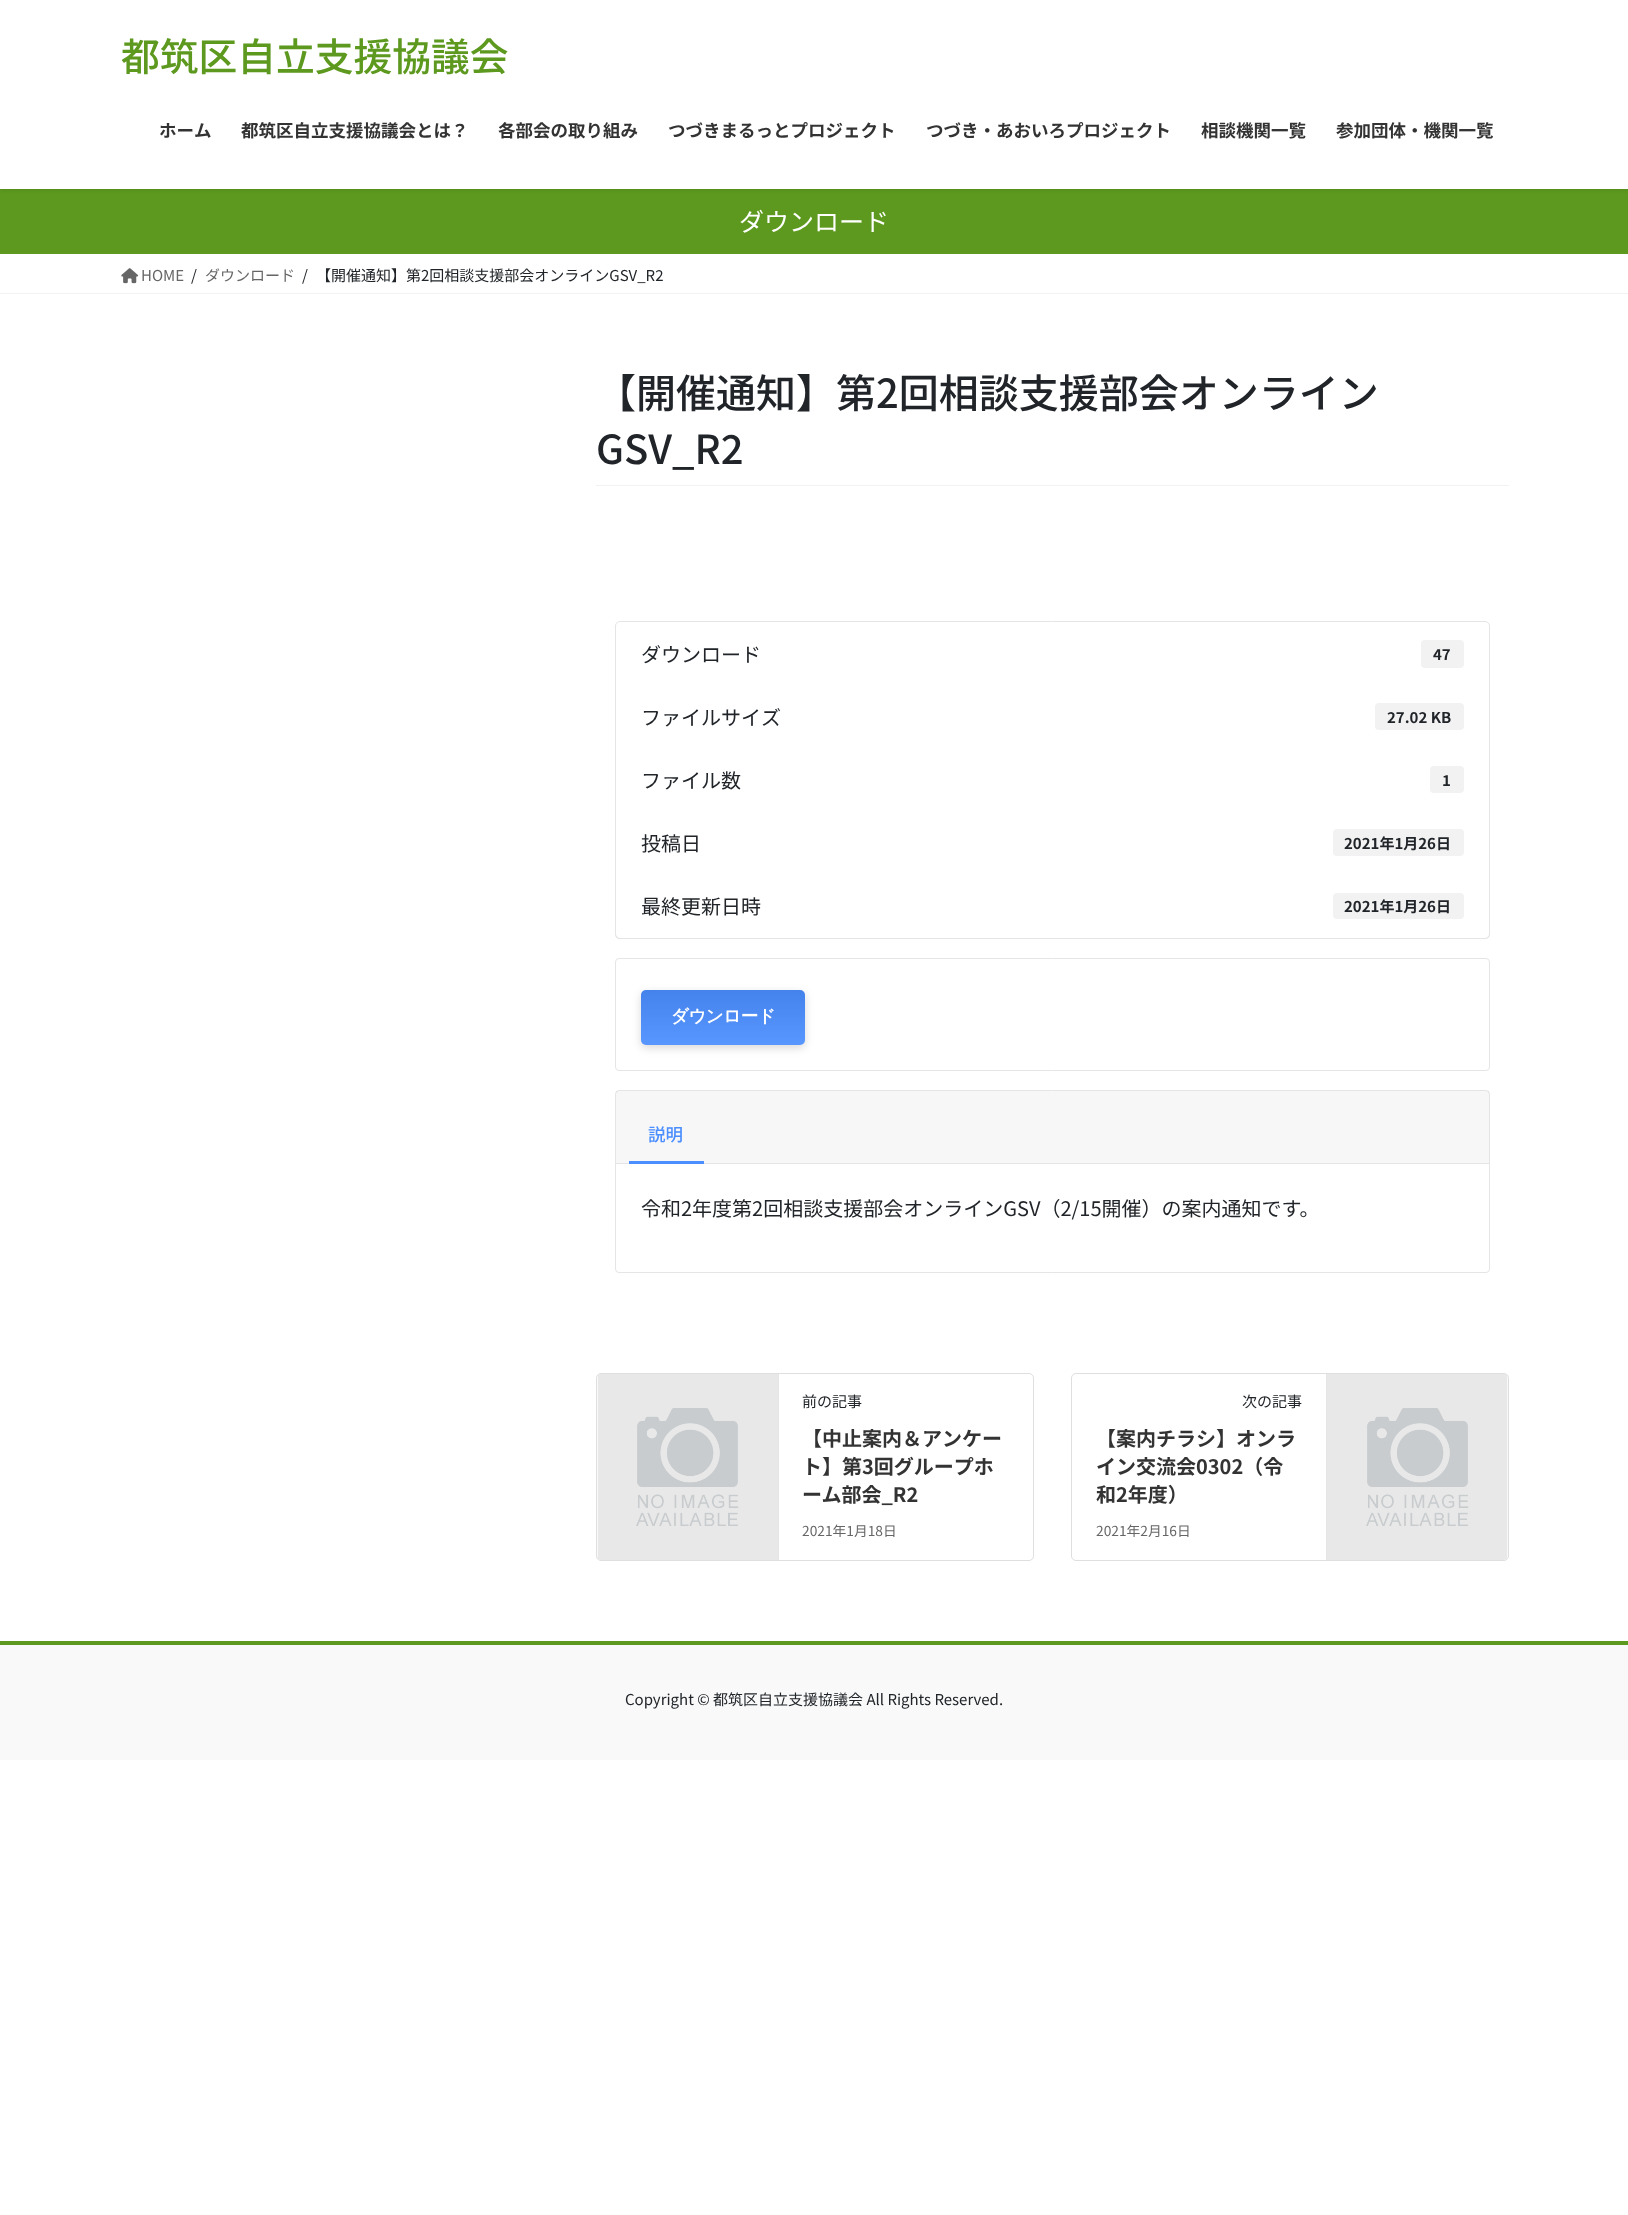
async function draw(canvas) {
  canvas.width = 1628
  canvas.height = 2215
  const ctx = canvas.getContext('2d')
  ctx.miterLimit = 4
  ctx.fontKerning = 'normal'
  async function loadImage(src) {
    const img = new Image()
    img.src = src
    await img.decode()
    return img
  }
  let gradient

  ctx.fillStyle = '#fff'
  ctx.fillRect(0, 0, 1628, 2215)
  ctx.fillStyle = '#5d991e'
  ctx.fillRect(0, 189, 1628, 65)
  ctx.fillStyle = '#0000001a'
  ctx.filter = 'blur(2px)'
  ctx.beginPath()
  ctx.rect(0, 1, 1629, 189)
  ctx.fill()
  ctx.filter = 'none'
  ctx.fillStyle = '#fff'
  ctx.fillRect(0, 0, 1628, 189)
  ctx.font = '500 38.75px Noto Sans JP'
  ctx.fillStyle = '#5d991e'
  ctx.fillText('都筑区自立支援協議会', 121, 71)
  ctx.font = 'bold 17.5px Noto Sans JP'
  ctx.fillStyle = '#333'
  ctx.fillText('ホーム', 159, 137)
  ctx.fillText('都筑区自立支援協議会とは？', 241, 137)
  ctx.fillText('各部会の取り組み', 498, 137)
  ctx.fillText('つづきまるっとプロジェクト', 668, 137)
  ctx.fillText('つづき・あおいろプロジェクト', 926, 137)
  ctx.fillText('相談機関一覧', 1201, 137)
  ctx.fillText('参加団体・機関一覧', 1336, 137)
  ctx.font = '25px Noto Sans JP'
  ctx.fillStyle = '#fff'
  ctx.fillText('ダウンロード', 739, 231)
  ctx.fillStyle = '#f2f2f2'
  ctx.fillRect(0, 293, 1628, 1)
  ctx.drawImage(await loadImage('image0.png'), 121, 268, 18, 16)
  ctx.font = '15px Noto Sans JP'
  ctx.fillStyle = '#666'
  ctx.fillText('HOME', 141, 281)
  ctx.fillStyle = '#212529'
  ctx.fillText('/', 191, 281)
  ctx.fillStyle = '#666'
  ctx.fillText('ダウンロード', 205, 281)
  ctx.fillStyle = '#212529'
  ctx.fillText('/', 302, 281)
  ctx.fillText('【開催通知】第2回相談支援部会オンラインGSV_R2', 316, 281)
  ctx.fillStyle = '#f2f2f2'
  ctx.fillRect(596, 485, 913, 1)
  ctx.font = '500 40px Noto Sans JP'
  ctx.fillStyle = '#212529'
  ctx.fillText('【開催通知】第2回相談支援部会オンライン', 596, 408)
  ctx.fillText('GSV_R2', 596, 464)
  ctx.beginPath()
  ctx.roundRect(615.5, 621.5, 874, 64, [4.5, 4.5, 0, 0])
  ctx.strokeStyle = '#e5e5e5'
  ctx.stroke()
  ctx.font = '20px Noto Sans JP'
  ctx.fillText('ダウンロード', 641, 662)
  ctx.fillStyle = '#f2f2f2'
  ctx.beginPath()
  ctx.roundRect(1421, 640, 43, 28, 4)
  ctx.fill()
  ctx.font = 'bold 15px Noto Sans JP'
  ctx.fillStyle = '#212529'
  ctx.fillText('47', 1433, 660)
  ctx.fillStyle = '#fff'
  ctx.fillRect(616, 685, 873, 1)
  ctx.fillStyle = '#e5e5e5'
  ctx.fillRect(1489, 685, 1, 190)
  ctx.fillRect(615, 685, 1, 190)
  ctx.font = '20px Noto Sans JP'
  ctx.fillStyle = '#212529'
  ctx.fillText('ファイルサイズ', 641, 725)
  ctx.fillStyle = '#f2f2f2'
  ctx.beginPath()
  ctx.roundRect(1375, 703, 89, 27, 4)
  ctx.fill()
  ctx.font = 'bold 15px Noto Sans JP'
  ctx.fillStyle = '#212529'
  ctx.fillText('27.02 KB', 1387, 723)
  ctx.font = '20px Noto Sans JP'
  ctx.fillText('ファイル数', 641, 788)
  ctx.fillStyle = '#f2f2f2'
  ctx.beginPath()
  ctx.roundRect(1430, 766, 34, 27, 4)
  ctx.fill()
  ctx.font = 'bold 15px Noto Sans JP'
  ctx.fillStyle = '#212529'
  ctx.fillText('1', 1442, 786)
  ctx.font = '20px Noto Sans JP'
  ctx.fillText('投稿日', 641, 851)
  ctx.fillStyle = '#f2f2f2'
  ctx.beginPath()
  ctx.roundRect(1333, 829, 131, 27, 4)
  ctx.fill()
  ctx.font = 'bold 15px Noto Sans JP'
  ctx.fillStyle = '#212529'
  ctx.fillText('2021年1月26日', 1344, 849)
  ctx.fillStyle = '#e5e5e5'
  ctx.beginPath()
  ctx.moveTo(615, 874)
  ctx.lineTo(1490, 874)
  ctx.lineTo(1490, 934)
  ctx.bezierCurveTo(1490, 937, 1488, 939, 1485, 939)
  ctx.lineTo(620, 939)
  ctx.bezierCurveTo(617, 939, 615, 937, 615, 934)
  ctx.closePath()
  ctx.moveTo(616, 874)
  ctx.lineTo(1489, 874)
  ctx.lineTo(1489, 934)
  ctx.bezierCurveTo(1489, 936, 1487, 938, 1485, 938)
  ctx.lineTo(620, 938)
  ctx.bezierCurveTo(618, 938, 616, 936, 616, 934)
  ctx.closePath()
  ctx.fill('evenodd')
  ctx.font = '20px Noto Sans JP'
  ctx.fillStyle = '#212529'
  ctx.fillText('最終更新日時', 641, 914)
  ctx.fillStyle = '#f2f2f2'
  ctx.beginPath()
  ctx.roundRect(1333, 893, 131, 26, 4)
  ctx.fill()
  ctx.font = 'bold 15px Noto Sans JP'
  ctx.fillStyle = '#212529'
  ctx.fillText('2021年1月26日', 1344, 912)
  ctx.beginPath()
  ctx.roundRect(615.5, 958.5, 874, 112, 3.5)
  ctx.stroke()
  ctx.fillStyle = '#00000026'
  ctx.filter = 'blur(4px)'
  ctx.beginPath()
  ctx.roundRect(641, 993, 164, 55, 5)
  ctx.fill()
  ctx.filter = 'none'
  ctx.fillStyle = '#4a8eff'
  ctx.beginPath()
  ctx.roundRect(641, 990, 164, 55, 5)
  ctx.fill()
  gradient = ctx.createLinearGradient(723, 990, 723, 1045)
  gradient.addColorStop(0, '#00000014')
  gradient.addColorStop(1, '#ffffff14')
  ctx.fillStyle = gradient
  ctx.beginPath()
  ctx.roundRect(641, 990, 164, 55, 5)
  ctx.fill()
  ctx.letterSpacing = '-0.5px'
  ctx.font = 'bold 17.5px WenQuanYi Zen Hei'
  ctx.fillStyle = '#fff'
  ctx.fillText('ダウンロード', 671, 1022)
  ctx.beginPath()
  ctx.roundRect(615.5, 1090.5, 874, 182, 3.5)
  ctx.stroke()
  ctx.fillStyle = '#00000008'
  ctx.fillRect(616, 1091, 873, 72)
  ctx.fillStyle = '#e5e5e5'
  ctx.fillRect(616, 1163, 873, 1)
  ctx.letterSpacing = '0px'
  ctx.font = '500 17.5px Noto Sans JP'
  ctx.fillStyle = '#4a8eff'
  ctx.fillText('説明', 648, 1141)
  ctx.fillRect(629, 1161, 75, 3)
  ctx.font = '20px Noto Sans JP'
  ctx.fillStyle = '#212529'
  ctx.fillText('令和2年度第2回相談支援部会オンラインGSV（2/15開催）の案内通知です。', 641, 1216)
  ctx.beginPath()
  ctx.roundRect(596.5, 1373.5, 437, 187, 4.5)
  ctx.strokeStyle = '#dfdfdf'
  ctx.stroke()
  ctx.drawImage(await loadImage('image1.png'), 597, 1374, 181, 186)
  ctx.fillStyle = '#e5e5e5'
  ctx.fillRect(778, 1374, 1, 186)
  ctx.font = '15px Noto Sans JP'
  ctx.fillStyle = '#212529'
  ctx.fillText('前の記事', 802, 1407)
  ctx.font = 'bold 20px Noto Sans JP'
  ctx.fillStyle = '#333'
  ctx.fillText('【中止案内＆アンケー', 802, 1446)
  ctx.fillText('ト】第3回グループホ', 802, 1474)
  ctx.fillText('ーム部会_R2', 802, 1502)
  ctx.font = '13.75px Noto Sans JP'
  ctx.fillStyle = '#666'
  ctx.fillText('2021年1月18日', 802, 1536)
  ctx.beginPath()
  ctx.roundRect(1071.5, 1373.5, 437, 187, 4.5)
  ctx.stroke()
  ctx.font = '15px Noto Sans JP'
  ctx.fillStyle = '#212529'
  ctx.fillText('次の記事', 1242, 1407)
  ctx.font = 'bold 20px Noto Sans JP'
  ctx.fillStyle = '#333'
  ctx.fillText('【案内チラシ】オンラ', 1096, 1446)
  ctx.fillText('イン交流会0302（令', 1096, 1474)
  ctx.fillText('和2年度）', 1096, 1502)
  ctx.font = '13.75px Noto Sans JP'
  ctx.fillStyle = '#666'
  ctx.fillText('2021年2月16日', 1096, 1536)
  ctx.drawImage(await loadImage('image2.png'), 1327, 1374, 181, 186)
  ctx.fillStyle = '#e5e5e5'
  ctx.fillRect(1326, 1374, 1, 186)
  ctx.fillStyle = '#f9f9f9'
  ctx.fillRect(0, 1645, 1628, 115)
  ctx.fillStyle = '#5d991e'
  ctx.fillRect(0, 1641, 1628, 4)
  ctx.font = '15px Noto Sans JP'
  ctx.fillStyle = '#212529'
  ctx.fillText('Copyright © 都筑区自立支援協議会 All Rights Reserved.', 625, 1705)
}

draw(document.querySelector('canvas'))
